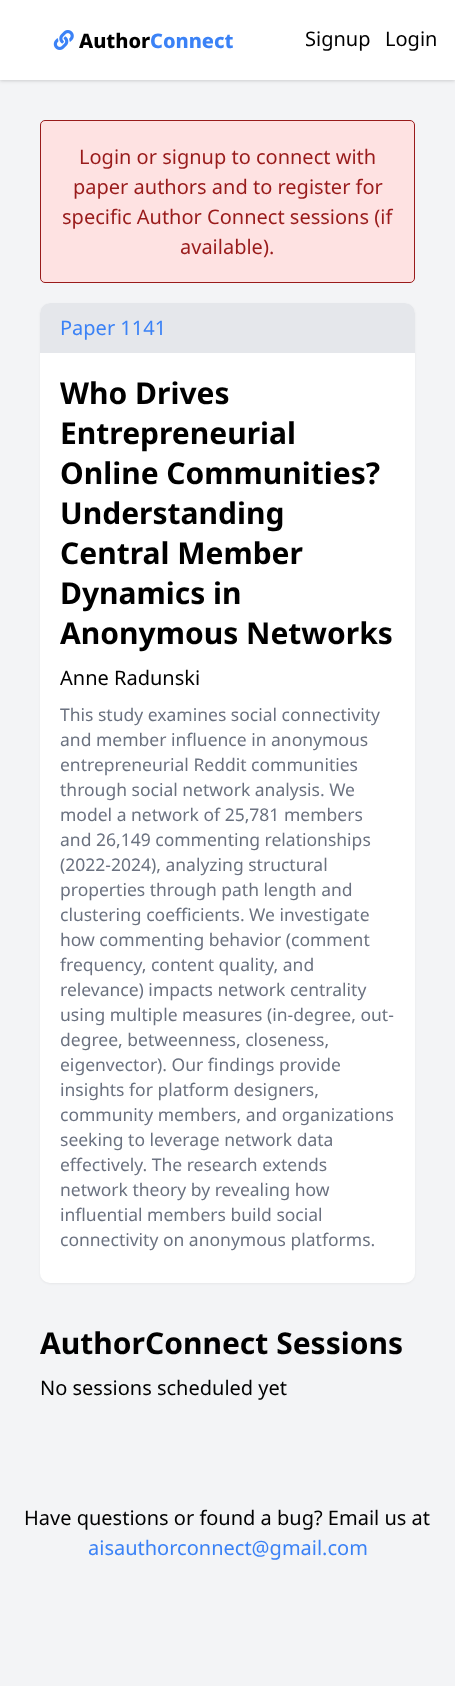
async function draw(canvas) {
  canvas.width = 455
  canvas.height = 1686
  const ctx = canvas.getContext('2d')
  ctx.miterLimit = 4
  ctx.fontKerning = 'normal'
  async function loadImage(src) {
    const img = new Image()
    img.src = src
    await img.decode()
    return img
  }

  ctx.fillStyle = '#f3f4f6'
  ctx.fillRect(0, 0, 455, 1686)
  ctx.fillStyle = '#0000000f'
  ctx.filter = 'blur(1px)'
  ctx.beginPath()
  ctx.rect(0, 1, 455, 80)
  ctx.fill()
  ctx.filter = 'none'
  ctx.fillStyle = '#0000001a'
  ctx.filter = 'blur(2px)'
  ctx.beginPath()
  ctx.rect(0, 1, 455, 80)
  ctx.fill()
  ctx.filter = 'none'
  ctx.fillStyle = '#fff'
  ctx.fillRect(0, 0, 455, 80)
  ctx.drawImage(await loadImage('image0.png'), 53, 30, 21, 20)
  ctx.font = '800 20px Noto Sans'
  ctx.fillStyle = '#000'
  ctx.fillText('Author', 79, 48)
  ctx.fillStyle = '#3b82f6'
  ctx.fillText('Connect', 150, 48)
  ctx.font = '20px Noto Sans'
  ctx.fillStyle = '#000'
  ctx.fillText('Signup', 305, 46)
  ctx.fillText('Login', 385, 46)
  ctx.fillStyle = '#fee2e2'
  ctx.beginPath()
  ctx.roundRect(40.5, 120.5, 374, 162, 4.5)
  ctx.fill()
  ctx.strokeStyle = '#991b1b'
  ctx.stroke()
  ctx.fillStyle = '#991b1b'
  ctx.fillText('Login or signup to connect with', 79, 164)
  ctx.fillText('paper authors and to register for', 73, 194)
  ctx.fillText('specific Author Connect sessions (if', 62, 224)
  ctx.fillText('available).', 180, 254)
  ctx.fillStyle = '#0000000d'
  ctx.filter = 'blur(1px)'
  ctx.beginPath()
  ctx.roundRect(40, 304, 375, 980, 10)
  ctx.fill()
  ctx.filter = 'none'
  ctx.fillStyle = '#fff'
  ctx.beginPath()
  ctx.roundRect(40, 303, 375, 980, 10)
  ctx.fill()
  ctx.fillStyle = '#e5e7eb'
  ctx.beginPath()
  ctx.roundRect(40, 303, 375, 50, [10, 10, 0, 0])
  ctx.fill()
  ctx.fillStyle = '#3b82f6'
  ctx.fillText('Paper 1141', 60, 335)
  ctx.font = 'bold 30px Noto Sans'
  ctx.fillStyle = '#000'
  ctx.fillText('Who Drives', 60, 404)
  ctx.fillText('Entrepreneurial', 60, 444)
  ctx.fillText('Online Communities?', 60, 484)
  ctx.fillText('Understanding', 60, 524)
  ctx.fillText('Central Member', 60, 564)
  ctx.fillText('Dynamics in', 60, 604)
  ctx.fillText('Anonymous Networks', 60, 644)
  ctx.font = '20px Noto Sans'
  ctx.fillText('Anne Radunski', 60, 685)
  ctx.font = '17.5px Noto Sans'
  ctx.fillStyle = '#6b7280'
  ctx.fillText('This study examines social connectivity', 60, 721)
  ctx.fillText('and member influence in anonymous', 60, 746)
  ctx.fillText('entrepreneurial Reddit communities', 60, 771)
  ctx.fillText('through social network analysis. We', 60, 796)
  ctx.fillText('model a network of 25,781 members', 60, 821)
  ctx.fillText('and 26,149 commenting relationships', 60, 846)
  ctx.fillText('(2022-2024), analyzing structural', 60, 871)
  ctx.fillText('properties through path length and', 60, 896)
  ctx.fillText('clustering coefficients. We investigate', 60, 921)
  ctx.fillText('how commenting behavior (comment', 60, 946)
  ctx.fillText('frequency, content quality, and', 60, 971)
  ctx.fillText('relevance) impacts network centrality', 60, 996)
  ctx.fillText('using multiple measures (in-degree, out-', 60, 1021)
  ctx.fillText('degree, betweenness, closeness,', 60, 1046)
  ctx.fillText('eigenvector). Our findings provide', 60, 1071)
  ctx.fillText('insights for platform designers,', 60, 1096)
  ctx.fillText('community members, and organizations', 60, 1121)
  ctx.fillText('seeking to leverage network data', 60, 1146)
  ctx.fillText('effectively. The research extends', 60, 1171)
  ctx.fillText('network theory by revealing how', 60, 1196)
  ctx.fillText('influential members build social', 60, 1221)
  ctx.fillText('connectivity on anonymous platforms.', 60, 1246)
  ctx.font = 'bold 30px Noto Sans'
  ctx.fillStyle = '#000'
  ctx.fillText('AuthorConnect Sessions', 40, 1354)
  ctx.font = '20px Noto Sans'
  ctx.fillText('No sessions scheduled yet', 40, 1395)
  ctx.fillText('Have questions or found a bug? Email us at', 24, 1525)
  ctx.fillStyle = '#3b82f6'
  ctx.fillText('aisauthorconnect@gmail.com', 88, 1555)
}

draw(document.querySelector('canvas'))
